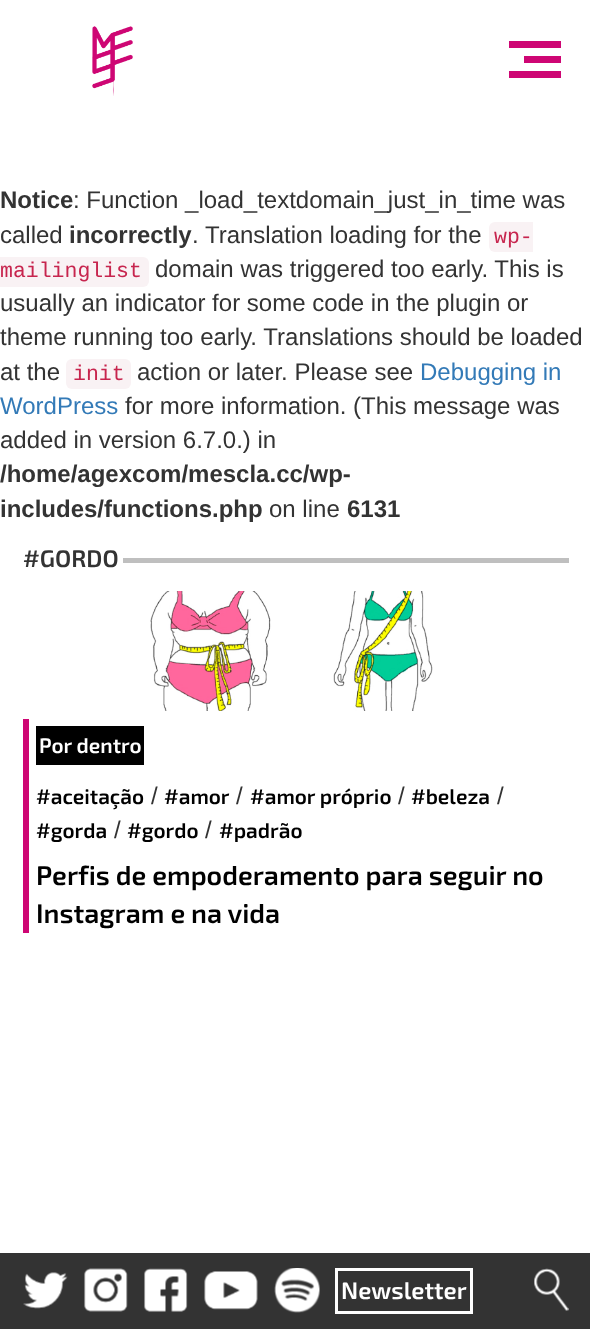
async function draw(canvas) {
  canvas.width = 590
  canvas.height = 1329
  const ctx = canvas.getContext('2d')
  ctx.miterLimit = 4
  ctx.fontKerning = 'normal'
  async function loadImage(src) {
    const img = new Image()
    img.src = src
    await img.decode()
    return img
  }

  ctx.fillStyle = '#fff'
  ctx.fillRect(0, 0, 590, 1329)
  ctx.drawImage(await loadImage('image0.png'), 92, 26, 41, 70)
  ctx.fillStyle = '#ce0674'
  ctx.fillRect(524, 56, 37, 7)
  ctx.fillRect(509, 41, 52, 7)
  ctx.fillRect(509, 71, 52, 7)
  ctx.font = 'bold 24px Liberation Sans'
  ctx.fillStyle = '#333'
  ctx.fillText('Notice', 0, 208)
  ctx.font = '24px Liberation Sans'
  ctx.fillText(': Function _load_textdomain_just_in_time was', 73, 208)
  ctx.fillText('called', 0, 243)
  ctx.font = 'bold 24px Liberation Sans'
  ctx.fillText('incorrectly', 69, 243)
  ctx.font = '24px Liberation Sans'
  ctx.fillText('. Translation loading for the', 192, 243)
  ctx.fillStyle = '#f9f2f4'
  ctx.beginPath()
  ctx.roundRect(489, 222, 44, 30, [6, 0, 0, 6])
  ctx.fill()
  ctx.font = '21.5px Liberation Mono'
  ctx.fillStyle = '#c7254e'
  ctx.fillText('wp-', 494, 243)
  ctx.fillStyle = '#f9f2f4'
  ctx.beginPath()
  ctx.roundRect(0, 257, 149, 30, [0, 6, 6, 0])
  ctx.fill()
  ctx.fillStyle = '#c7254e'
  ctx.fillText('mailinglist', 0, 277)
  ctx.font = '24px Liberation Sans'
  ctx.fillStyle = '#333'
  ctx.fillText('domain was triggered too early. This is', 155, 277)
  ctx.fillText('usually an indicator for some code in the plugin or', 0, 311)
  ctx.fillText('theme running too early. Translations should be loaded', 0, 345)
  ctx.fillText('at the', 0, 380)
  ctx.fillStyle = '#f9f2f4'
  ctx.beginPath()
  ctx.roundRect(66, 359, 65, 30, 6)
  ctx.fill()
  ctx.font = '21.5px Liberation Mono'
  ctx.fillStyle = '#c7254e'
  ctx.fillText('init', 73, 380)
  ctx.font = '24px Liberation Sans'
  ctx.fillStyle = '#333'
  ctx.fillText('action or later. Please see', 137, 380)
  ctx.fillStyle = '#337ab7'
  ctx.fillText('Debugging in', 420, 380)
  ctx.fillText('WordPress', 0, 414)
  ctx.fillStyle = '#333'
  ctx.fillText('for more information. (This message was', 125, 414)
  ctx.fillText('added in version 6.7.0.) in', 0, 448)
  ctx.font = 'bold 24px Liberation Sans'
  ctx.fillText('/home/agexcom/mescla.cc/wp-', 0, 482)
  ctx.fillText('includes/functions.php', 0, 517)
  ctx.font = '24px Liberation Sans'
  ctx.fillText('on line', 269, 517)
  ctx.font = 'bold 24px Liberation Sans'
  ctx.fillText('6131', 347, 517)
  ctx.font = '600 24px "Exo 2"'
  ctx.fillText('#GORDO', 23, 567)
  ctx.fillStyle = '#bfbfbf'
  ctx.fillRect(123, 558, 446, 5)
  ctx.drawImage(await loadImage('image1.png'), 150, 591, 283, 120)
  ctx.fillStyle = '#ce0674'
  ctx.fillRect(23, 719, 6, 214)
  ctx.fillStyle = '#000'
  ctx.fillRect(36, 726, 108, 39)
  ctx.font = '600 21px "Exo 2"'
  ctx.fillStyle = '#fff'
  ctx.fillText('Por dentro', 39, 753)
  ctx.fillStyle = '#000'
  ctx.fillText('#aceitação', 36, 804)
  ctx.font = '24px Liberation Sans'
  ctx.fillStyle = '#333'
  ctx.fillText('/', 151, 804)
  ctx.font = '600 21px "Exo 2"'
  ctx.fillStyle = '#000'
  ctx.fillText('#amor', 164, 804)
  ctx.font = '24px Liberation Sans'
  ctx.fillStyle = '#333'
  ctx.fillText('/', 236, 804)
  ctx.font = '600 21px "Exo 2"'
  ctx.fillStyle = '#000'
  ctx.fillText('#amor próprio', 250, 804)
  ctx.font = '24px Liberation Sans'
  ctx.fillStyle = '#333'
  ctx.fillText('/', 398, 804)
  ctx.font = '600 21px "Exo 2"'
  ctx.fillStyle = '#000'
  ctx.fillText('#beleza', 411, 804)
  ctx.font = '24px Liberation Sans'
  ctx.fillStyle = '#333'
  ctx.fillText('/', 497, 804)
  ctx.font = '600 21px "Exo 2"'
  ctx.fillStyle = '#000'
  ctx.fillText('#gorda', 36, 838)
  ctx.font = '24px Liberation Sans'
  ctx.fillStyle = '#333'
  ctx.fillText('/', 114, 838)
  ctx.font = '600 21px "Exo 2"'
  ctx.fillStyle = '#000'
  ctx.fillText('#gordo', 127, 838)
  ctx.font = '24px Liberation Sans'
  ctx.fillStyle = '#333'
  ctx.fillText('/', 205, 838)
  ctx.font = '600 21px "Exo 2"'
  ctx.fillStyle = '#000'
  ctx.fillText('#padrão', 219, 838)
  ctx.font = '600 27px "Exo 2"'
  ctx.fillText('Perfis de empoderamento para seguir no', 36, 885)
  ctx.fillText('Instagram e na vida', 36, 923)
  ctx.fillStyle = '#333'
  ctx.fillRect(0, 1253, 590, 76)
  ctx.drawImage(await loadImage('image2.png'), 23, 1272, 45, 37)
  ctx.drawImage(await loadImage('image3.png'), 84, 1268, 44, 44)
  ctx.drawImage(await loadImage('image4.png'), 144, 1268, 44, 44)
  ctx.drawImage(await loadImage('image5.png'), 204, 1271, 54, 39)
  ctx.drawImage(await loadImage('image6.png'), 274, 1268, 46, 45)
  ctx.strokeStyle = '#fff'
  ctx.lineWidth = 3
  ctx.strokeRect(336.5, 1269.5, 135, 43)
  ctx.font = '600 24px "Exo 2"'
  ctx.fillStyle = '#fff'
  ctx.fillText('Newsletter', 341, 1299)
  ctx.drawImage(await loadImage('image7.png'), 534, 1268, 35, 43)
}

draw(document.querySelector('canvas'))
